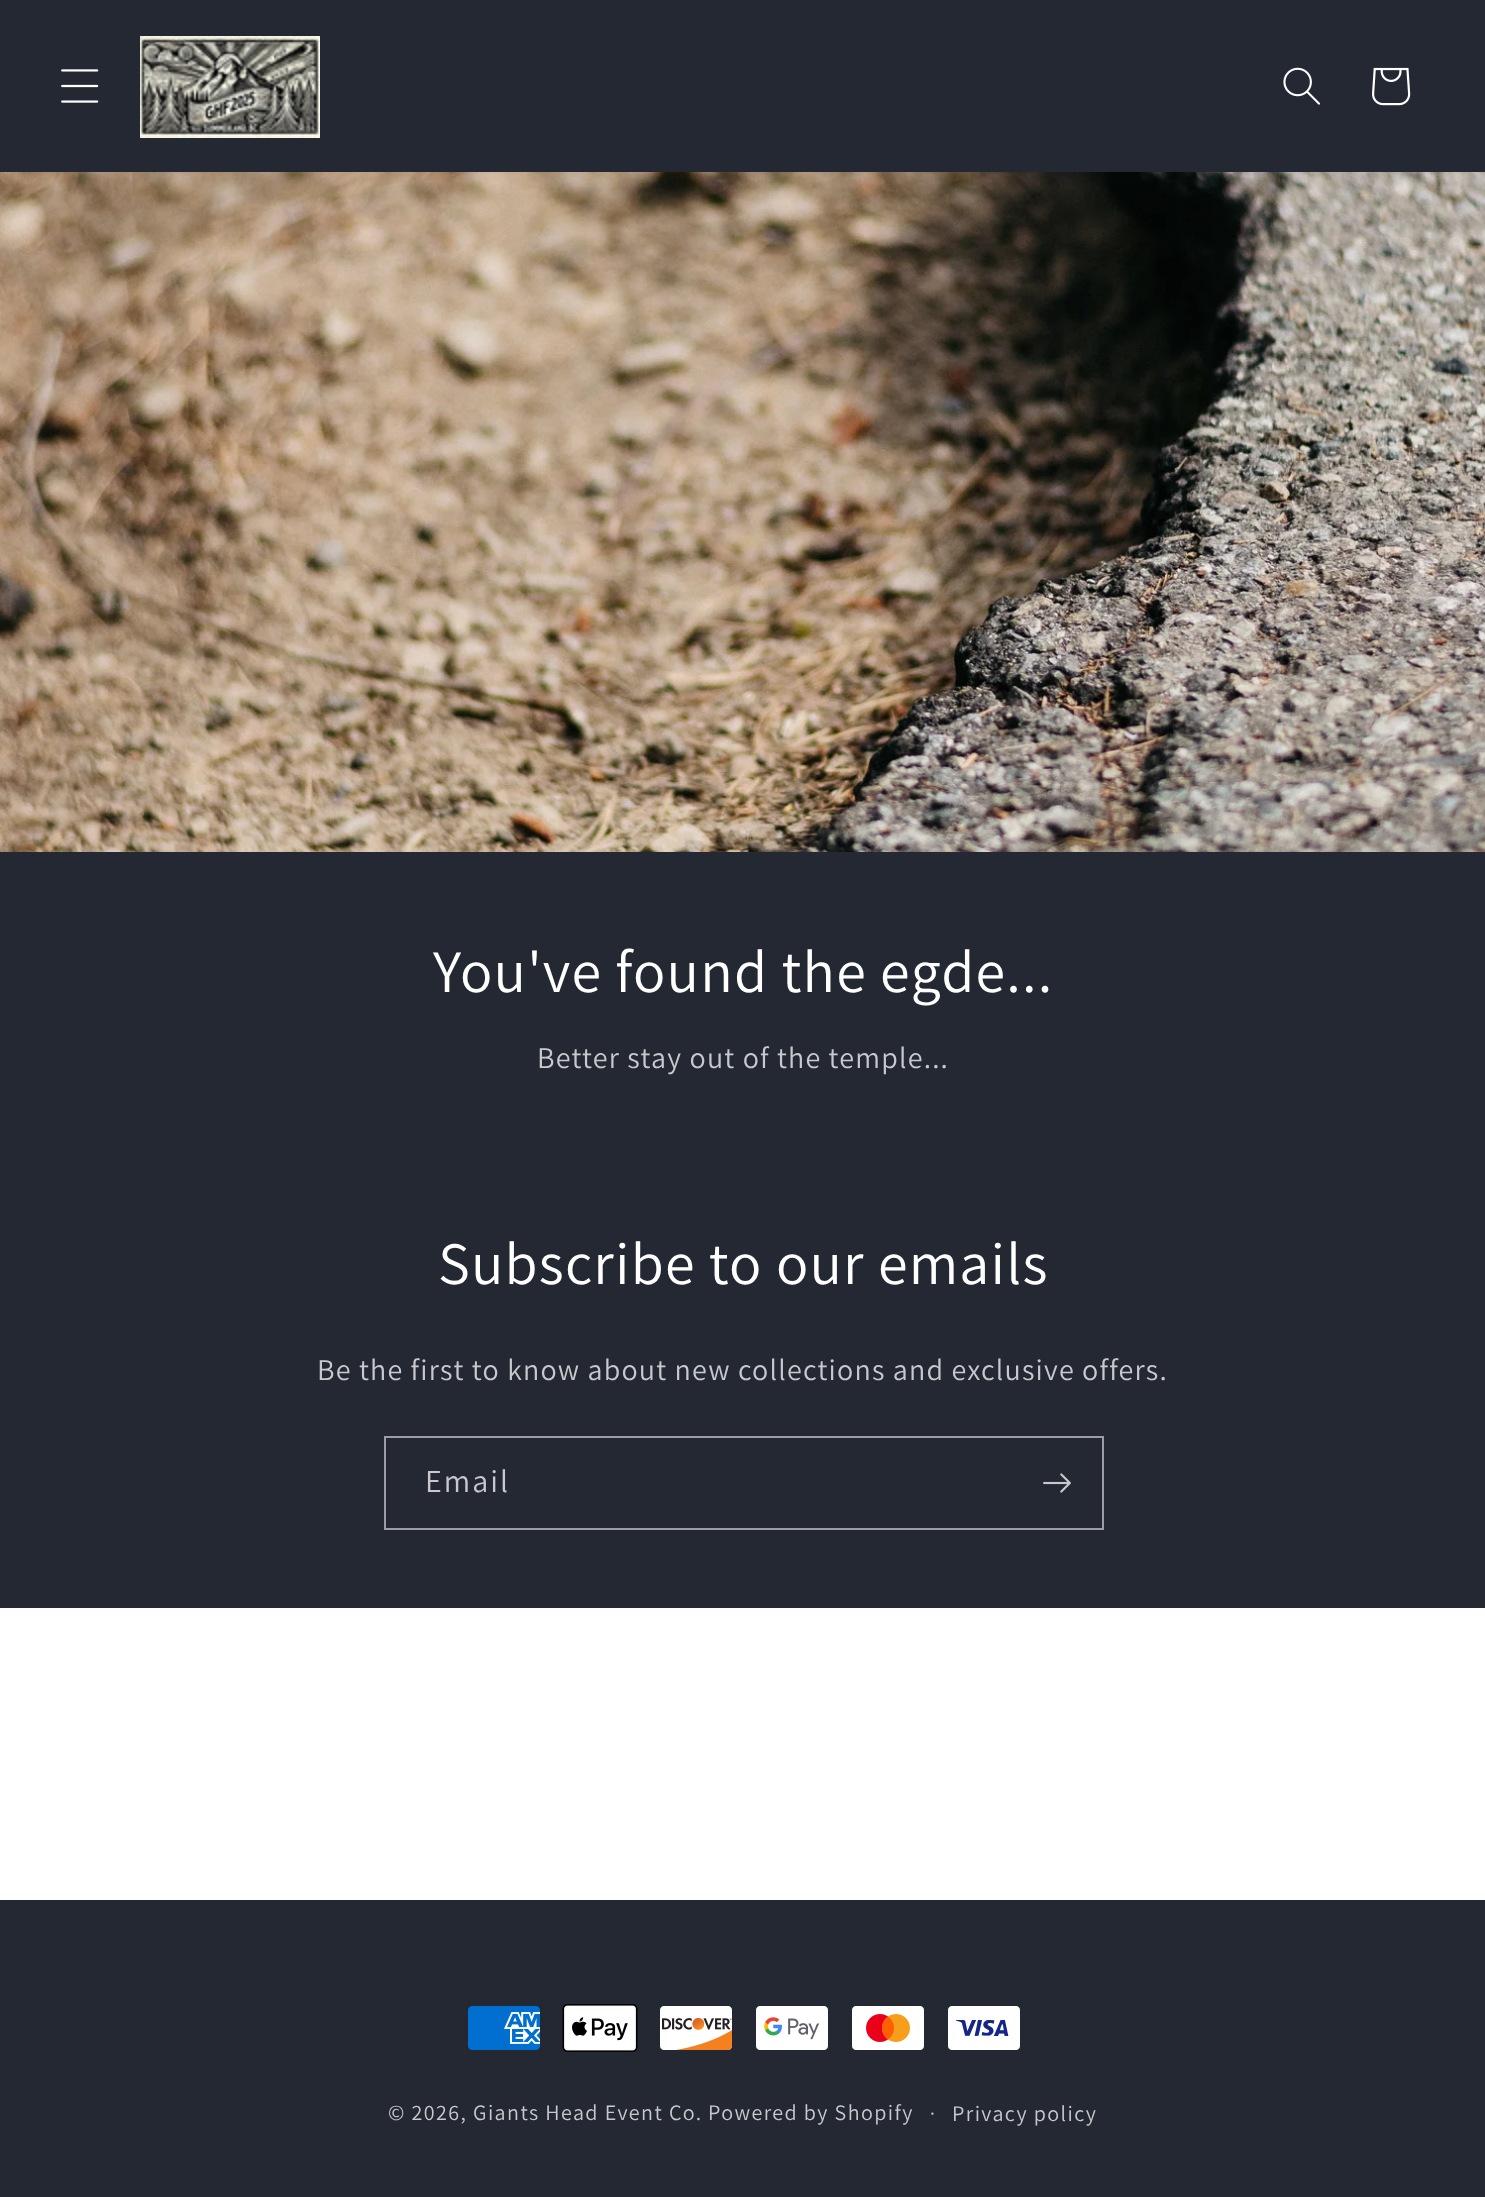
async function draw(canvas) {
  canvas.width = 1485
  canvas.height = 2197
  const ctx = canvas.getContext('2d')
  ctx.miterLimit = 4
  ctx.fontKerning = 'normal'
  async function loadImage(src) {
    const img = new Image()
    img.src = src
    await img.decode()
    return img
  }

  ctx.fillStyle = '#fff'
  ctx.fillRect(0, 0, 1485, 2197)
  ctx.fillStyle = '#242833'
  ctx.fillRect(0, 0, 1485, 172)
  ctx.drawImage(await loadImage('image0.png'), 61, 69, 38, 34)
  ctx.drawImage(await loadImage('image1.png'), 140, 36, 180, 102)
  ctx.drawImage(await loadImage('image2.png'), 1283, 67, 37, 38)
  ctx.drawImage(await loadImage('image3.png'), 1372, 67, 39, 39)
  ctx.drawImage(await loadImage('image4.png'), 0, 172, 1485, 680)
  ctx.fillRect(0, 852, 1485, 756)
  ctx.letterSpacing = '1.2px'
  ctx.font = '60px Assistant'
  ctx.fillStyle = '#fff'
  ctx.fillText('You\'ve found the egde...', 433, 992)
  ctx.font = '30px Assistant'
  ctx.fillStyle = '#c8c9cc'
  ctx.fillText('Better stay out of the temple...', 537, 1068)
  ctx.font = '60px Assistant'
  ctx.fillStyle = '#fff'
  ctx.fillText('Subscribe to our emails', 438, 1284)
  ctx.font = '30px Assistant'
  ctx.fillStyle = '#c8c9cc'
  ctx.fillText('Be the first to know about new collections and exclusive offers.', 317, 1380)
  ctx.strokeStyle = '#9c9ea3'
  ctx.lineWidth = 2
  ctx.strokeRect(385, 1437, 718, 92)
  ctx.letterSpacing = '2px'
  ctx.font = '32px Assistant'
  ctx.fillText('Email', 425, 1492)
  ctx.drawImage(await loadImage('image5.png'), 1043, 1473, 28, 20)
  ctx.fillStyle = '#242833'
  ctx.fillRect(0, 1900, 1485, 297)
  ctx.drawImage(await loadImage('image6.png'), 468, 2006, 72, 44)
  ctx.drawImage(await loadImage('image7.png'), 562, 2004, 76, 48)
  ctx.drawImage(await loadImage('image8.png'), 660, 2006, 73, 44)
  ctx.drawImage(await loadImage('image9.png'), 756, 2006, 72, 44)
  ctx.drawImage(await loadImage('image10.png'), 852, 2006, 72, 44)
  ctx.drawImage(await loadImage('image11.png'), 948, 2006, 72, 44)
  ctx.letterSpacing = '1.4px'
  ctx.font = '22px Assistant'
  ctx.fillStyle = '#c8c9cc'
  ctx.fillText('© 2026, Giants Head Event Co.', 388, 2120)
  ctx.fillText('Powered by Shopify', 708, 2120)
  ctx.font = '20px Assistant'
  ctx.fillText('·', 930, 2120)
  ctx.font = '22px Assistant'
  ctx.fillText('Privacy policy', 952, 2121)
}

draw(document.querySelector('canvas'))
